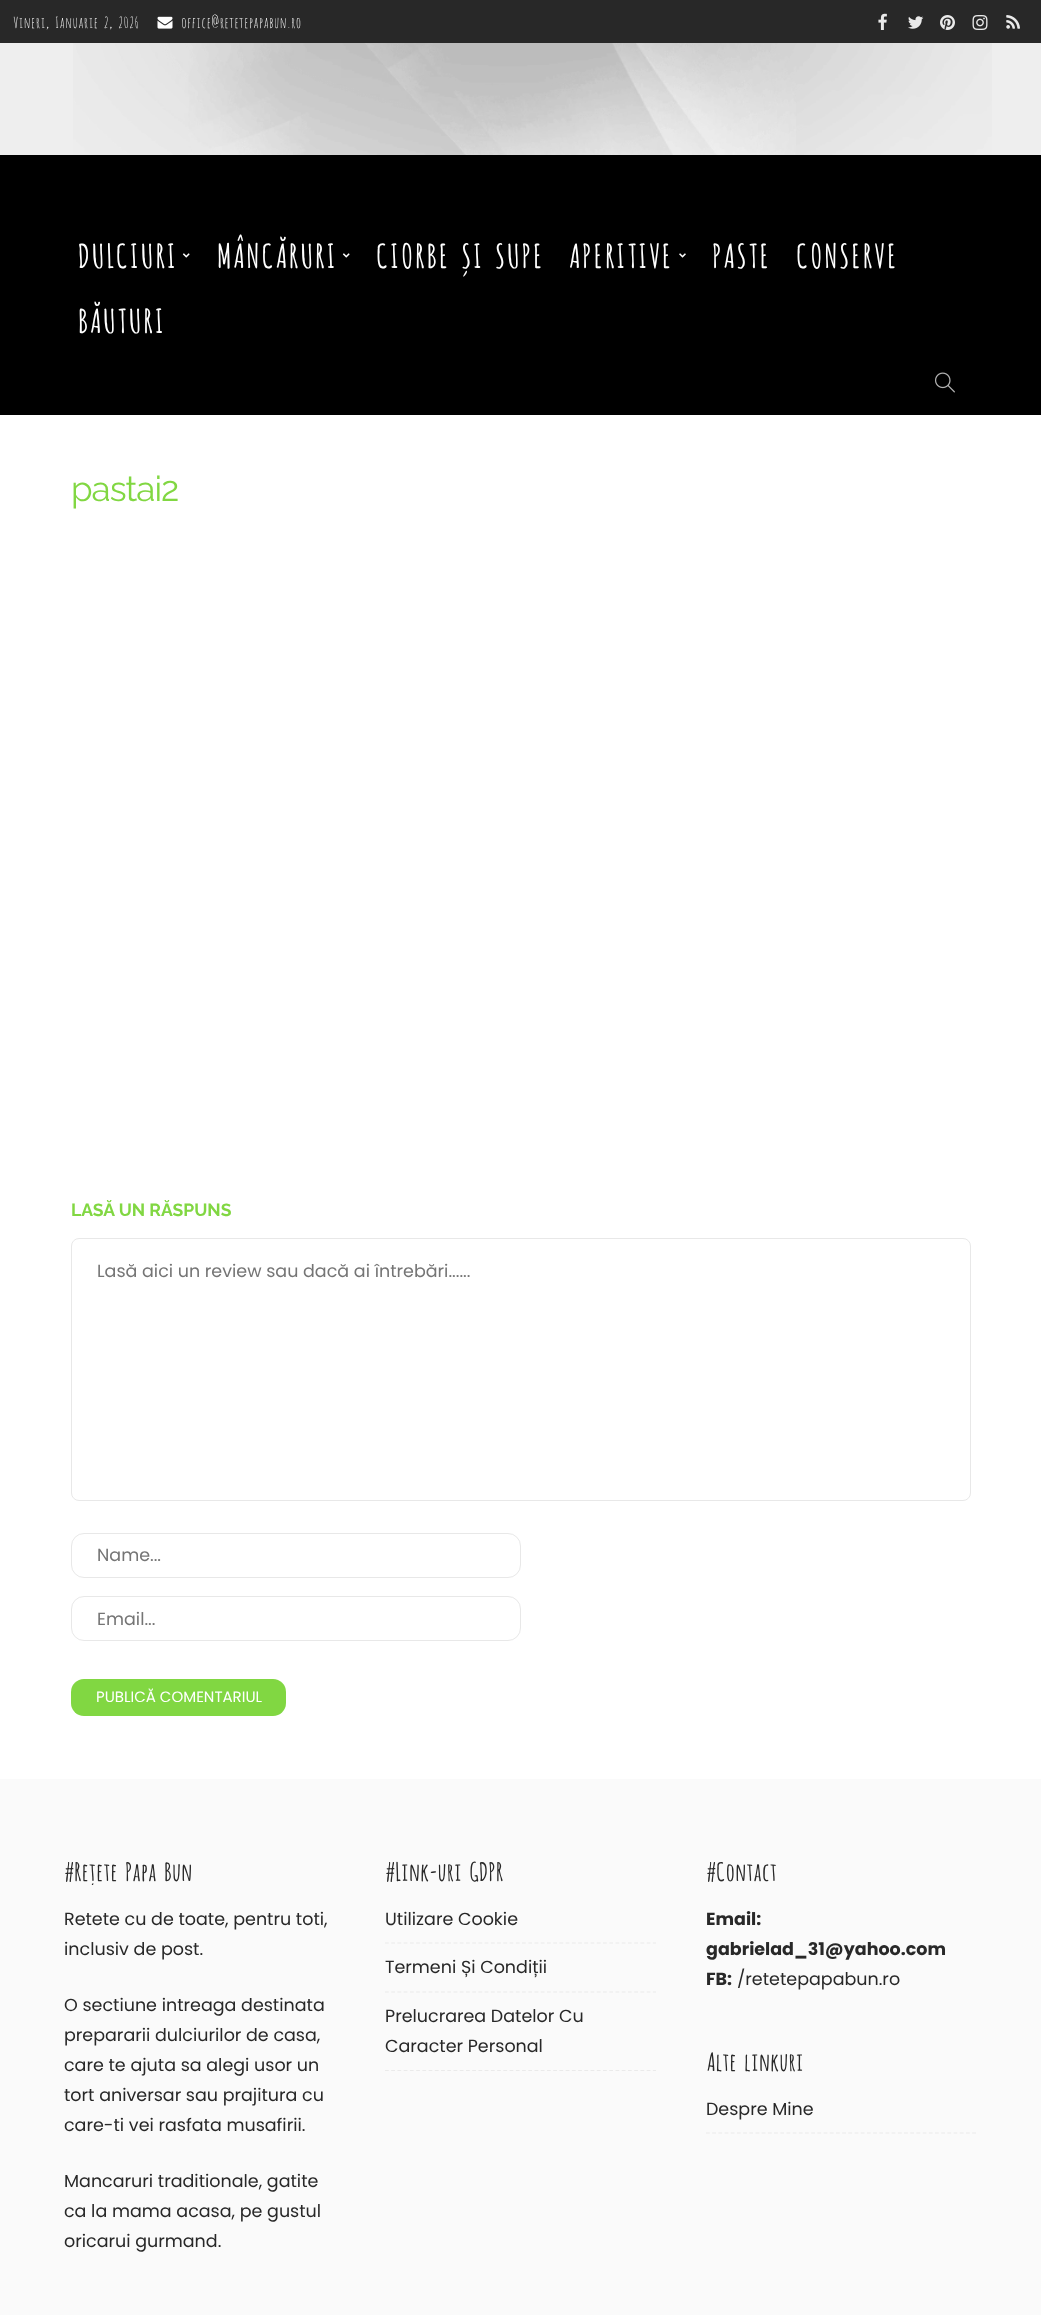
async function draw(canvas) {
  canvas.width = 1041
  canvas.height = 2315
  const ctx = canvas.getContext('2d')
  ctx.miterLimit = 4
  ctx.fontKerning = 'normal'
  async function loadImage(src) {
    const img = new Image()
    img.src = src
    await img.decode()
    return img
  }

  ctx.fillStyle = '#fff'
  ctx.fillRect(0, 0, 1041, 2315)
  ctx.fillStyle = '#282828'
  ctx.fillRect(0, 0, 1041, 43)
  ctx.font = '15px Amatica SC'
  ctx.fillStyle = '#fff'
  ctx.fillText('Vineri, Ianuarie 2, 2026', 13, 28)
  ctx.drawImage(await loadImage('image0.png'), 157, 16, 16, 13)
  ctx.fillText('office@retetepapabun.ro', 181, 28)
  ctx.drawImage(await loadImage('image1.png'), 878, 13, 9, 17)
  ctx.drawImage(await loadImage('image2.png'), 908, 16, 16, 13)
  ctx.drawImage(await loadImage('image3.png'), 940, 15, 15, 15)
  ctx.drawImage(await loadImage('image4.png'), 972, 15, 16, 15)
  ctx.drawImage(await loadImage('image5.png'), 1006, 15, 14, 14)
  ctx.fillStyle = '#eee'
  ctx.fillRect(0, 43, 1041, 112)
  ctx.drawImage(await loadImage('image6.png'), 73, 43, 919, 112)
  ctx.fillStyle = '#000'
  ctx.fillRect(0, 155, 1041, 260)
  ctx.font = 'bold 32.5px Amatica SC'
  ctx.fillStyle = '#fff'
  ctx.fillText('DULCIURI', 77, 268)
  ctx.drawImage(await loadImage('image7.png'), 182, 253, 8, 5)
  ctx.fillText('MÂNCĂRURI', 216, 268)
  ctx.drawImage(await loadImage('image7.png'), 342, 253, 8, 5)
  ctx.fillText('CIORBE ȘI SUPE', 375, 268)
  ctx.fillText('APERITIVE', 568, 268)
  ctx.drawImage(await loadImage('image8.png'), 679, 253, 7, 5)
  ctx.fillText('PASTE', 711, 268)
  ctx.fillText('CONSERVE', 795, 268)
  ctx.fillText('BĂUTURI', 77, 333)
  ctx.drawImage(await loadImage('image9.png'), 935, 372, 20, 21)
  ctx.letterSpacing = '-1px'
  ctx.font = '35px Raleway'
  ctx.fillStyle = '#81d742'
  ctx.fillText('pastai2', 71, 501)
  ctx.letterSpacing = '0px'
  ctx.font = 'bold 17.5px Raleway'
  ctx.fillText('LASĂ UN RĂSPUNS', 71, 1216)
  ctx.beginPath()
  ctx.roundRect(71.5, 1238.5, 899, 262, 7.5)
  ctx.strokeStyle = '#e8e8e8'
  ctx.stroke()
  ctx.font = '17.5px Poppins'
  ctx.fillStyle = '#757575'
  ctx.fillText('Lasă aici un review sau dacă ai întrebări......', 97, 1277)
  ctx.beginPath()
  ctx.roundRect(71.5, 1533.5, 449, 44, 12.5)
  ctx.stroke()
  ctx.fillText('Name...', 97, 1561)
  ctx.beginPath()
  ctx.roundRect(71.5, 1596.5, 449, 44, 12.5)
  ctx.stroke()
  ctx.fillText('Email...', 97, 1625)
  ctx.fillStyle = '#81d742'
  ctx.beginPath()
  ctx.roundRect(71, 1679, 215, 37, 13)
  ctx.fill()
  ctx.font = '15px Poppins'
  ctx.fillStyle = '#fff'
  ctx.fillText('PUBLICĂ COMENTARIUL', 96, 1702)
  ctx.fillStyle = '#fafafa'
  ctx.fillRect(0, 1779, 1041, 536)
  ctx.save()
  ctx.beginPath()
  ctx.rect(65, 1854, 270, 31)
  ctx.clip()
  ctx.letterSpacing = '-1.25px'
  ctx.font = 'bold 25px Amatica SC'
  ctx.fillStyle = '#282828'
  ctx.fillText('#Rețete Papa Bun', 64, 1881)
  ctx.restore()
  ctx.font = '17.5px Poppins'
  ctx.fillStyle = '#282828'
  ctx.fillText('Retete cu de toate, pentru toti,', 64, 1925)
  ctx.fillText('inclusiv de post.', 64, 1955)
  ctx.fillText('O sectiune intreaga destinata', 64, 2011)
  ctx.fillText('prepararii dulciurilor de casa,', 64, 2041)
  ctx.fillText('care te ajuta sa alegi usor un', 64, 2071)
  ctx.fillText('tort aniversar sau prajitura cu', 64, 2101)
  ctx.fillText('care-ti vei rasfata musafirii.', 64, 2131)
  ctx.fillText('Mancaruri traditionale, gatite', 64, 2187)
  ctx.fillText('ca la mama acasa, pe gustul', 64, 2217)
  ctx.fillText('oricarui gurmand.', 64, 2247)
  ctx.letterSpacing = '-1.25px'
  ctx.font = 'bold 25px Amatica SC'
  ctx.fillText('#Link-uri GDPR', 385, 1881)
  ctx.beginPath()
  ctx.moveTo(385, 1943)
  ctx.lineTo(656, 1943)
  ctx.strokeStyle = '#eaeaea'
  ctx.lineWidth = 1.2
  ctx.setLineDash([3.75, 2.48])
  ctx.stroke()
  ctx.letterSpacing = '0px'
  ctx.font = '17.5px Poppins'
  ctx.fillText('Utilizare Cookie', 385, 1925)
  ctx.beginPath()
  ctx.moveTo(385, 1992)
  ctx.lineTo(656, 1992)
  ctx.stroke()
  ctx.fillText('Termeni Și Condiții', 385, 1973)
  ctx.beginPath()
  ctx.moveTo(385, 2070.5)
  ctx.lineTo(656, 2070.5)
  ctx.stroke()
  ctx.fillText('Prelucrarea Datelor Cu', 385, 2022)
  ctx.fillText('Caracter Personal', 385, 2052)
  ctx.letterSpacing = '-1.25px'
  ctx.font = 'bold 25px Amatica SC'
  ctx.fillText('#Contact', 706, 1881)
  ctx.letterSpacing = '0px'
  ctx.font = 'bold 17.5px Poppins'
  ctx.fillText('Email:', 706, 1925)
  ctx.fillText('gabrielad_31@yahoo.com', 706, 1955)
  ctx.fillText('FB:', 706, 1985)
  ctx.font = '17.5px Poppins'
  ctx.fillText('/retetepapabun.ro', 737, 1985)
  ctx.letterSpacing = '-1.25px'
  ctx.font = 'bold 25px Amatica SC'
  ctx.fillText('Alte linkuri', 706, 2071)
  ctx.beginPath()
  ctx.moveTo(706, 2133)
  ctx.lineTo(976, 2133)
  ctx.setLineDash([3.75, 2.44])
  ctx.stroke()
  ctx.letterSpacing = '0px'
  ctx.font = '17.5px Poppins'
  ctx.fillText('Despre Mine', 706, 2115)
}

draw(document.querySelector('canvas'))
